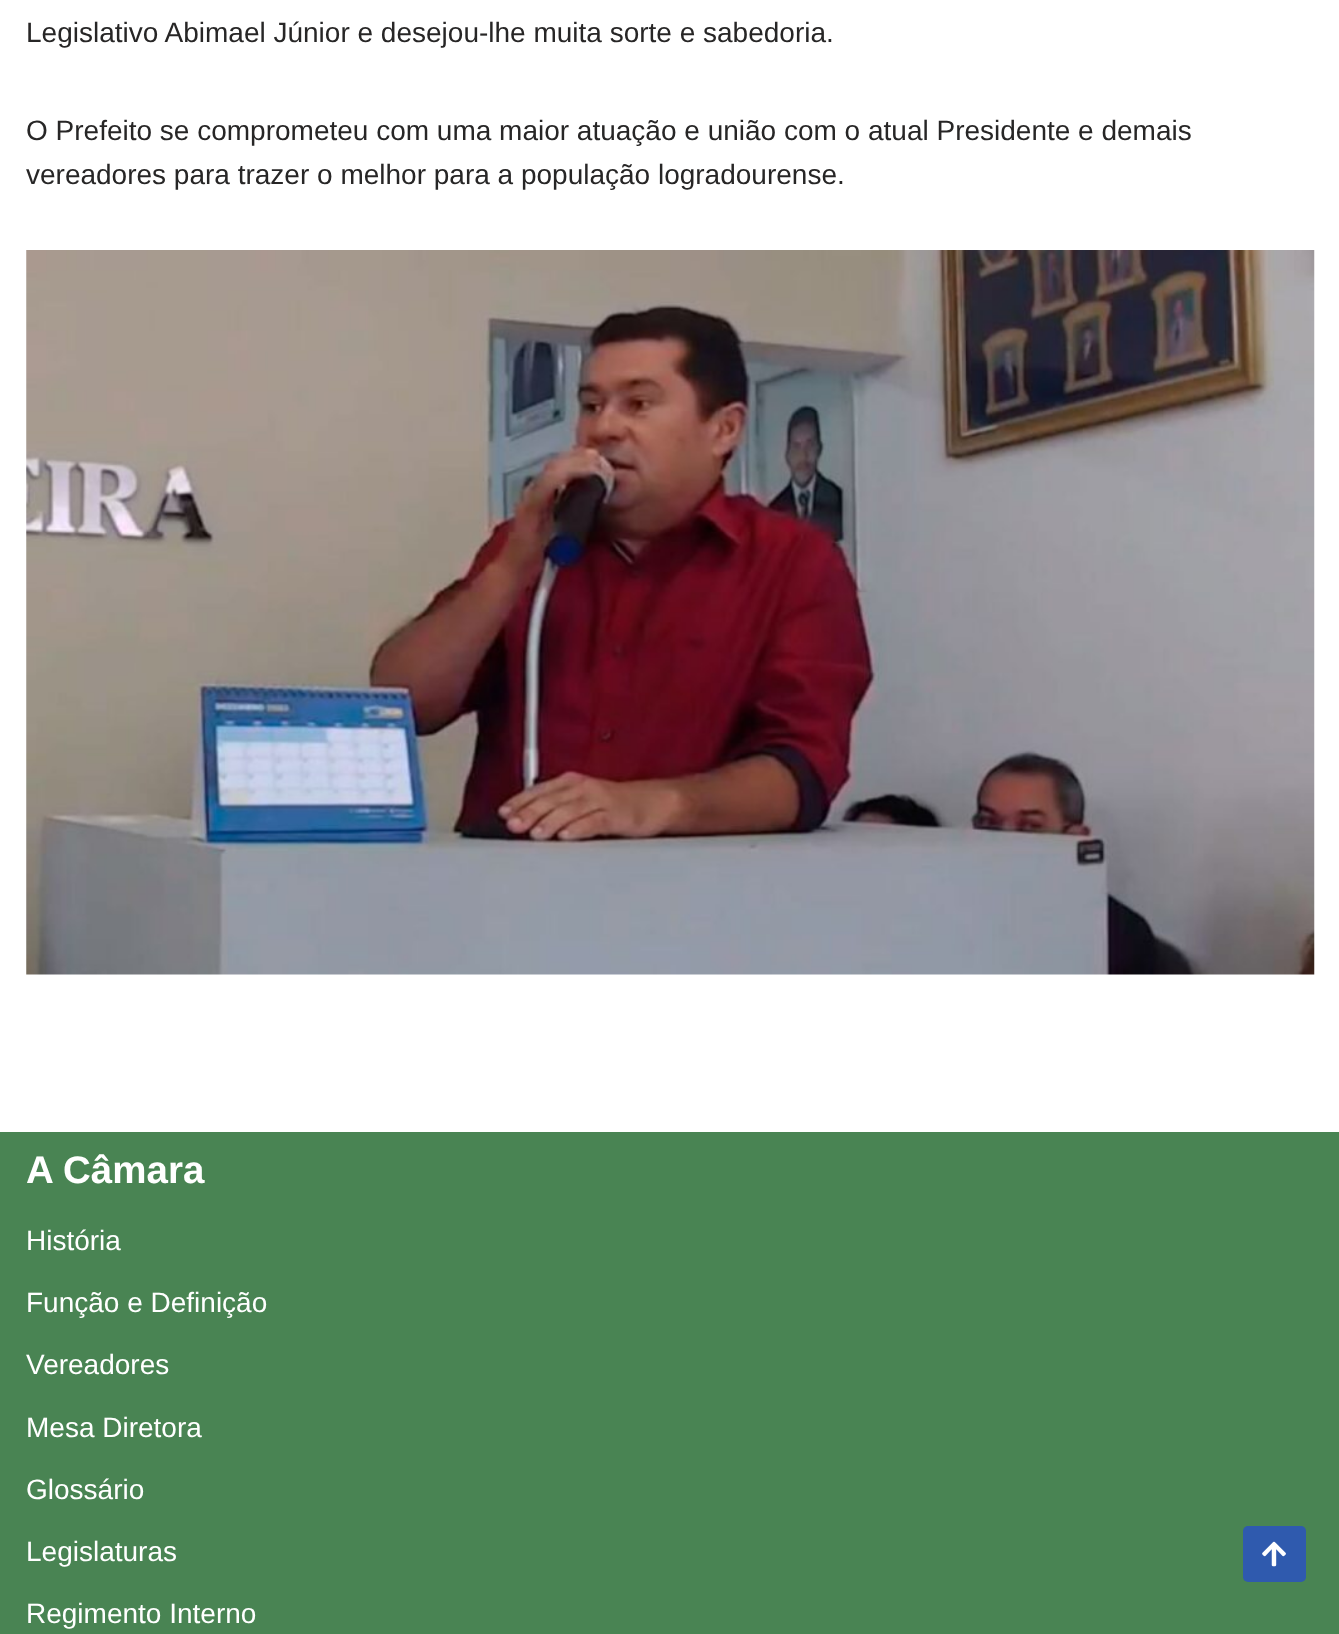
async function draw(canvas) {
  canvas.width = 1339
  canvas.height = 1634
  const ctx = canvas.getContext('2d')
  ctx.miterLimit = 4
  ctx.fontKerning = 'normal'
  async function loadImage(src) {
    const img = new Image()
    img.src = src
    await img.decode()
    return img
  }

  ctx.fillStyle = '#fff'
  ctx.fillRect(0, 0, 1339, 1634)
  ctx.font = '28px Liberation Sans'
  ctx.fillStyle = '#272626'
  ctx.fillText('Legislativo Abimael Júnior e desejou-lhe muita sorte e sabedoria.', 26, 42)
  ctx.fillText('O Prefeito se comprometeu com uma maior atuação e união com o atual Presidente e demais', 26, 140)
  ctx.fillText('vereadores para trazer o melhor para a população logradourense.', 26, 184)
  ctx.drawImage(await loadImage('image0.png'), 26, 250, 1289, 725)
  ctx.fillStyle = '#498453'
  ctx.fillRect(0, 1132, 1339, 502)
  ctx.font = 'bold 38.5px Liberation Sans'
  ctx.fillStyle = '#fff'
  ctx.fillText('A Câmara', 26, 1183)
  ctx.font = '28px Liberation Sans'
  ctx.fillText('História', 26, 1250)
  ctx.fillText('Função e Definição', 26, 1312)
  ctx.fillText('Vereadores', 26, 1374)
  ctx.fillText('Mesa Diretora', 26, 1437)
  ctx.fillText('Glossário', 26, 1499)
  ctx.fillText('Legislaturas', 26, 1561)
  ctx.fillText('Regimento Interno', 26, 1623)
  ctx.fillStyle = '#2f5aae'
  ctx.beginPath()
  ctx.roundRect(1243, 1526, 63, 56, 5)
  ctx.fill()
  ctx.drawImage(await loadImage('image1.png'), 1262, 1541, 24, 26)
}

draw(document.querySelector('canvas'))
